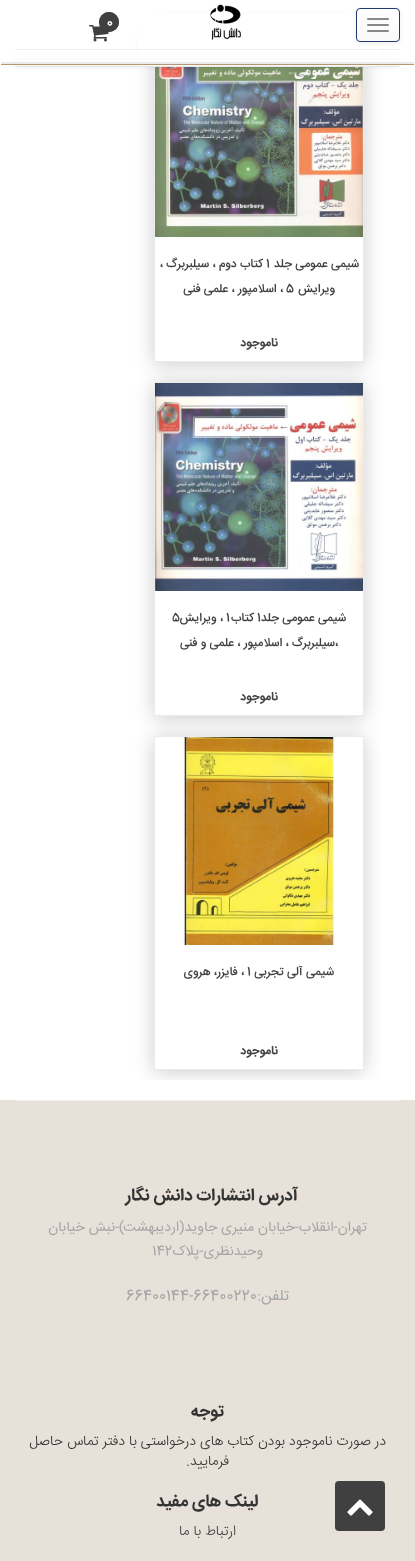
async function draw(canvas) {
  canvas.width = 415
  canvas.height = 1561
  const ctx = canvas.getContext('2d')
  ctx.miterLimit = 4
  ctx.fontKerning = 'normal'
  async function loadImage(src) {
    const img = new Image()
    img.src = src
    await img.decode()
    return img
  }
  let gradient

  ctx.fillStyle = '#fff'
  ctx.fillRect(0, 0, 415, 1561)
  ctx.save()
  ctx.beginPath()
  ctx.moveTo(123, 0)
  ctx.lineTo(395, 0)
  ctx.lineTo(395, 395)
  ctx.lineTo(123, 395)
  ctx.closePath()
  ctx.moveTo(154, 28)
  ctx.lineTo(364, 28)
  ctx.lineTo(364, 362)
  ctx.lineTo(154, 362)
  ctx.closePath()
  ctx.clip('evenodd')
  ctx.fillStyle = '#00000033'
  ctx.filter = 'blur(10px)'
  ctx.beginPath()
  ctx.rect(154, 30, 210, 334)
  ctx.fill()
  ctx.filter = 'none'
  ctx.restore()
  ctx.strokeStyle = '#ebebeb'
  ctx.strokeRect(154.5, 28.5, 209, 333)
  ctx.fillRect(138, 14, 242, 53)
  ctx.fillStyle = '#f0f0f0'
  ctx.fillRect(15, 66, 385, 1)
  ctx.fillStyle = '#eee'
  ctx.fillRect(15, 49, 385, 1)
  ctx.fillStyle = '#00000012'
  ctx.filter = 'blur(2.5px)'
  ctx.beginPath()
  ctx.roundRect(356, 9, 44, 34, 4)
  ctx.fill()
  ctx.filter = 'none'
  gradient = ctx.createLinearGradient(378, 8, 378, 42)
  gradient.addColorStop(0, '#fff')
  gradient.addColorStop(1, '#f8f8f8')
  ctx.fillStyle = gradient
  ctx.beginPath()
  ctx.roundRect(356.5, 8.5, 43, 33, 3.5)
  ctx.fill()
  ctx.strokeStyle = '#223871'
  ctx.stroke()
  ctx.fillStyle = '#888'
  ctx.beginPath()
  ctx.roundRect(367, 18, 22, 2, 1)
  ctx.fill()
  ctx.beginPath()
  ctx.roundRect(367, 24, 22, 2, 1)
  ctx.fill()
  ctx.beginPath()
  ctx.roundRect(367, 30, 22, 2, 1)
  ctx.fill()
  ctx.drawImage(await loadImage('image0.png'), 210, 4, 31, 36)
  ctx.drawImage(await loadImage('image1.png'), 89, 25, 20, 17)
  ctx.fillStyle = '#333'
  ctx.filter = 'blur(0.5px)'
  ctx.beginPath()
  ctx.roundRect(99, 12, 20, 20, 10)
  ctx.fill()
  ctx.filter = 'none'
  ctx.fillStyle = '#404040'
  ctx.beginPath()
  ctx.arc(109, 22, 10, 0, 2 * Math.PI)
  ctx.fill()
  ctx.font = 'bold 13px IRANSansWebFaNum'
  ctx.fillStyle = '#fff'
  ctx.fillText('0', 107, 26)
  ctx.drawImage(await loadImage('image2.png'), 155, 67, 208, 170)
  ctx.fillStyle = '#00000012'
  ctx.filter = 'blur(2.5px)'
  ctx.beginPath()
  ctx.roundRect(15, 61, 385, 6, 3)
  ctx.fill()
  ctx.filter = 'none'
  ctx.fillStyle = '#f8f8f8'
  ctx.beginPath()
  ctx.roundRect(15, 60, 385, 6, 3)
  ctx.fill()
  ctx.save()
  ctx.beginPath()
  ctx.roundRect(15, 60, 385, 6, 3)
  ctx.clip()
  gradient = ctx.createLinearGradient(208, 60, 208, 65)
  gradient.addColorStop(0, '#fff')
  gradient.addColorStop(1, '#f8f8f8')
  ctx.fillStyle = gradient
  ctx.beginPath()
  ctx.roundRect(15, 60, 385, 5, [3, 3, 0, 0])
  ctx.fill()
  ctx.restore()
  ctx.fillStyle = '#eaeaea'
  ctx.fillRect(1, 62, 413, 2)
  ctx.fillStyle = '#b59870'
  ctx.fillRect(1, 64, 413, 1)
  ctx.direction = 'rtl'
  ctx.font = '500 12px IRANSansWebFaNum'
  ctx.fillStyle = '#424242'
  ctx.fillText('شیمی عمومی جلد', 359, 267)
  ctx.direction = 'ltr'
  ctx.fillText('1', 266, 267)
  ctx.direction = 'rtl'
  ctx.fillText('کتاب دوم ، سیلبربرگ ،', 263, 267)
  ctx.fillText('ویرایش', 335, 292)
  ctx.direction = 'ltr'
  ctx.fillText('5', 286, 292)
  ctx.direction = 'rtl'
  ctx.fillText('، اسلامپور ، علمی فنی', 283, 292)
  ctx.font = 'bold 12px IRANSansWebFaNum'
  ctx.fillText('ناموجود', 278, 346)
  ctx.save()
  ctx.beginPath()
  ctx.moveTo(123, 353)
  ctx.lineTo(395, 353)
  ctx.lineTo(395, 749)
  ctx.lineTo(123, 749)
  ctx.closePath()
  ctx.moveTo(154, 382)
  ctx.lineTo(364, 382)
  ctx.lineTo(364, 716)
  ctx.lineTo(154, 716)
  ctx.closePath()
  ctx.clip('evenodd')
  ctx.fillStyle = '#00000033'
  ctx.filter = 'blur(10px)'
  ctx.beginPath()
  ctx.rect(154, 384, 210, 334)
  ctx.fill()
  ctx.filter = 'none'
  ctx.restore()
  ctx.strokeStyle = '#ebebeb'
  ctx.strokeRect(154.5, 382.5, 209, 333)
  ctx.drawImage(await loadImage('image3.png'), 155, 383, 208, 208)
  ctx.font = '500 12px IRANSansWebFaNum'
  ctx.fillText('شیمی عمومی جلد', 346, 621)
  ctx.direction = 'ltr'
  ctx.fillText('1', 257, 621)
  ctx.direction = 'rtl'
  ctx.fillText('کتاب', 254, 621)
  ctx.direction = 'ltr'
  ctx.fillText('1', 226, 621)
  ctx.direction = 'rtl'
  ctx.fillText('، ویرایش', 223, 621)
  ctx.direction = 'ltr'
  ctx.fillText('5', 172, 621)
  ctx.direction = 'rtl'
  ctx.fillText('،سیلبربرگ ، اسلامپور ، علمی و فنی', 338, 646)
  ctx.font = 'bold 12px IRANSansWebFaNum'
  ctx.fillText('ناموجود', 278, 700)
  ctx.fillStyle = '#e7e1da'
  ctx.fillRect(0, 1100, 415, 461)
  ctx.save()
  ctx.beginPath()
  ctx.roundRect(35, -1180, 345, 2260, 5)
  ctx.clip()
  ctx.beginPath()
  ctx.moveTo(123, 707)
  ctx.lineTo(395, 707)
  ctx.lineTo(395, 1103)
  ctx.lineTo(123, 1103)
  ctx.closePath()
  ctx.moveTo(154, 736)
  ctx.lineTo(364, 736)
  ctx.lineTo(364, 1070)
  ctx.lineTo(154, 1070)
  ctx.closePath()
  ctx.clip('evenodd')
  ctx.fillStyle = '#00000033'
  ctx.filter = 'blur(10px)'
  ctx.beginPath()
  ctx.rect(154, 738, 210, 334)
  ctx.fill()
  ctx.filter = 'none'
  ctx.restore()
  ctx.strokeRect(154.5, 736.5, 209, 333)
  ctx.drawImage(await loadImage('image4.png'), 181, 737, 154, 208)
  ctx.font = '500 12px IRANSansWebFaNum'
  ctx.fillStyle = '#424242'
  ctx.fillText('شیمی آلی تجربی', 334, 975)
  ctx.direction = 'ltr'
  ctx.fillText('1', 247, 975)
  ctx.direction = 'rtl'
  ctx.fillText('، فایزر، هروی', 244, 975)
  ctx.font = 'bold 12px IRANSansWebFaNum'
  ctx.fillText('ناموجود', 278, 1054)
  ctx.fillStyle = '#f0f0f0'
  ctx.fillRect(15, 1100, 385, 1)
  ctx.font = 'bold 17px IRANSansWebFaNum'
  ctx.fillStyle = '#343434'
  ctx.fillText('آدرس انتشارات دانش نگار', 298, 1200)
  ctx.font = '14px IRANSansWebFaNum'
  ctx.fillStyle = '#a6a6a6'
  ctx.fillText('تهران-انقلاب-خیابان منیری جاوید(اردیبهشت)-نبش خیابان', 367, 1231)
  ctx.fillText('وحیدنظری-پلاک', 263, 1255)
  ctx.direction = 'ltr'
  ctx.fillText('142', 152, 1255)
  ctx.direction = 'rtl'
  ctx.font = '15px IRANSansWebFaNum'
  ctx.fillText('تلفن:', 289, 1300)
  ctx.direction = 'ltr'
  ctx.fillText('66400144-66400220', 126, 1300)
  ctx.direction = 'rtl'
  ctx.font = 'bold 17px IRANSansWebFaNum'
  ctx.fillStyle = '#343434'
  ctx.fillText('توجه', 224, 1416)
  ctx.font = '300 14px IRANSansWebFaNum'
  ctx.fillText('در صورت ناموجود بودن کتاب های درخواستی با دفتر تماس حاصل', 386, 1445)
  ctx.fillText('فرمایید.', 229, 1465)
  ctx.font = 'bold 17px IRANSansWebFaNum'
  ctx.fillText('لینک های مفید', 258, 1506)
  ctx.font = '300 14px IRANSansWebFaNum'
  ctx.fillStyle = '#424242'
  ctx.fillText('ارتباط با ما', 236, 1535)
  ctx.fillStyle = '#404040'
  ctx.beginPath()
  ctx.roundRect(335, 1481, 50, 50, 4)
  ctx.fill()
  ctx.drawImage(await loadImage('image5.png'), 347, 1499, 26, 17)
}

draw(document.querySelector('canvas'))
